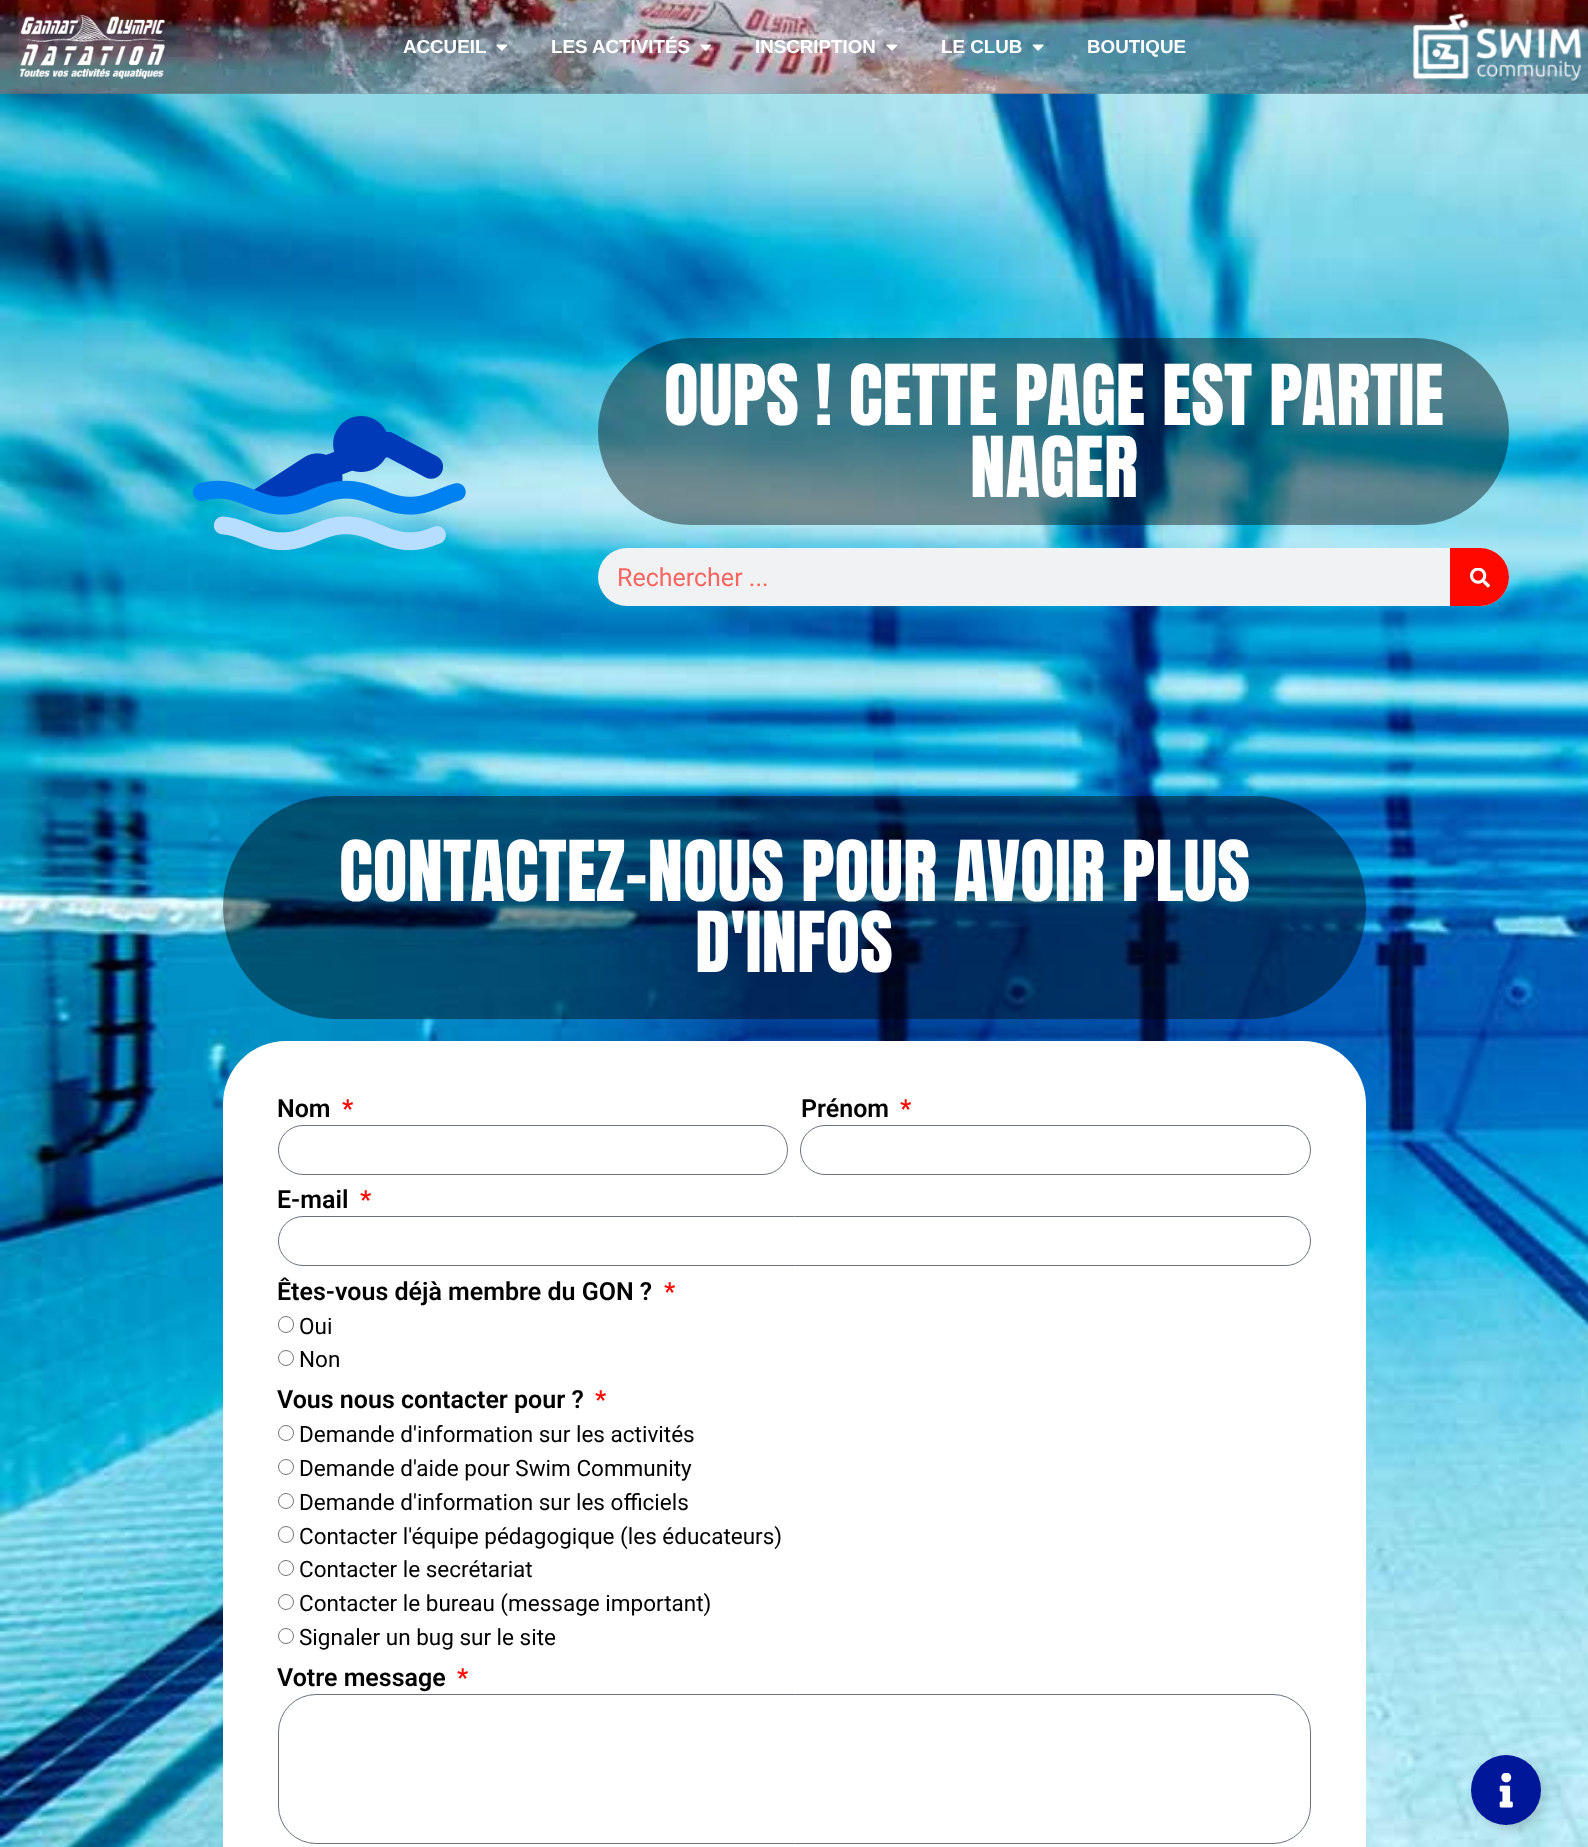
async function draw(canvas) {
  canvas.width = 1588
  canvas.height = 1847
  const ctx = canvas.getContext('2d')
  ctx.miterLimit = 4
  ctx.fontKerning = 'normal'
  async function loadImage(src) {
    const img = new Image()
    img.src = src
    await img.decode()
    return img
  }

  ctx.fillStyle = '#fff'
  ctx.fillRect(0, 0, 1588, 1847)
  ctx.fillStyle = '#000'
  ctx.filter = 'blur(6px)'
  ctx.beginPath()
  ctx.rect(0, 0, 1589, 94)
  ctx.fill()
  ctx.filter = 'none'
  ctx.drawImage(await loadImage('image0.png'), 0, 0, 1588, 94)
  ctx.fillStyle = '#0000001a'
  ctx.fillRect(0, 0, 1588, 94)
  ctx.drawImage(await loadImage('image1.png'), 19, 15, 146, 64)
  ctx.font = 'bold 18.75px Liberation Sans'
  ctx.fillStyle = '#fff'
  ctx.fillText('ACCUEIL', 403, 53)
  ctx.drawImage(await loadImage('image2.png'), 496, 44, 12, 7)
  ctx.fillText('LES ACTIVITÉS', 551, 53)
  ctx.drawImage(await loadImage('image3.png'), 700, 44, 11, 7)
  ctx.fillText('INSCRIPTION', 755, 53)
  ctx.drawImage(await loadImage('image4.png'), 886, 44, 12, 7)
  ctx.fillText('LE CLUB', 941, 53)
  ctx.drawImage(await loadImage('image5.png'), 1032, 44, 12, 7)
  ctx.fillText('BOUTIQUE', 1087, 53)
  ctx.drawImage(await loadImage('image6.png'), 1413, 13, 169, 68)
  ctx.drawImage(await loadImage('image7.png'), 0, 93, 1588, 1754)
  ctx.drawImage(await loadImage('image8.png'), 192, 416, 274, 135)
  ctx.fillStyle = '#00000069'
  ctx.beginPath()
  ctx.roundRect(598, 338, 911, 187, 93.5)
  ctx.fill()
  ctx.font = '71.25px Anton'
  ctx.fillStyle = '#fff'
  ctx.fillText('OUPS ! CETTE PAGE EST PARTIE', 664, 425)
  ctx.fillText('NAGER', 970, 497)
  ctx.fillStyle = '#f1f2f3'
  ctx.beginPath()
  ctx.roundRect(598, 548, 911, 58, 29)
  ctx.fill()
  ctx.font = '25px Roboto'
  ctx.fillStyle = '#f96661'
  ctx.fillText('Rechercher ...', 617, 586)
  ctx.fillStyle = '#ff0800'
  ctx.beginPath()
  ctx.roundRect(1450, 548, 59, 58, [0, 29, 29, 0])
  ctx.fill()
  ctx.drawImage(await loadImage('image9.png'), 1470, 568, 20, 20)
  ctx.fillStyle = '#00000069'
  ctx.beginPath()
  ctx.roundRect(223, 796, 1143, 223, 111.5)
  ctx.fill()
  ctx.font = '71.25px Anton'
  ctx.fillStyle = '#fff'
  ctx.fillText('CONTACTEZ-NOUS POUR AVOIR PLUS', 339, 901)
  ctx.fillText('D\'INFOS', 695, 972)
  ctx.beginPath()
  ctx.roundRect(223, 1041, 1143, 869, 63)
  ctx.fill()
  ctx.font = '600 25px Roboto'
  ctx.fillStyle = '#000'
  ctx.fillText('Nom', 277, 1117)
  ctx.fillStyle = '#ff0800'
  ctx.fillText('*', 342, 1117)
  ctx.beginPath()
  ctx.roundRect(278.5, 1125.5, 509, 49, 24.5)
  ctx.strokeStyle = '#69727d'
  ctx.stroke()
  ctx.fillStyle = '#000'
  ctx.fillText('Prénom', 801, 1117)
  ctx.fillStyle = '#ff0800'
  ctx.fillText('*', 900, 1117)
  ctx.beginPath()
  ctx.roundRect(800.5, 1125.5, 510, 49, 24.5)
  ctx.stroke()
  ctx.fillStyle = '#000'
  ctx.fillText('E-mail', 277, 1208)
  ctx.fillStyle = '#ff0800'
  ctx.fillText('*', 360, 1208)
  ctx.beginPath()
  ctx.roundRect(278.5, 1216.5, 1032, 49, 24.5)
  ctx.stroke()
  ctx.fillStyle = '#000'
  ctx.fillText('Êtes-vous déjà membre du GON ?', 277, 1300)
  ctx.fillStyle = '#ff0800'
  ctx.fillText('*', 664, 1300)
  ctx.beginPath()
  ctx.roundRect(278.5, 1316.5, 15, 16, 7.5)
  ctx.strokeStyle = '#767676'
  ctx.stroke()
  ctx.font = '22.5px Roboto'
  ctx.fillStyle = '#000'
  ctx.fillText('Oui', 299, 1334)
  ctx.beginPath()
  ctx.arc(286, 1358, 7.5, 0, 2 * Math.PI)
  ctx.stroke()
  ctx.fillText('Non', 299, 1367)
  ctx.font = '600 25px Roboto'
  ctx.fillText('Vous nous contacter pour ?', 277, 1408)
  ctx.fillStyle = '#ff0800'
  ctx.fillText('*', 595, 1408)
  ctx.beginPath()
  ctx.arc(286, 1433, 7.5, 0, 2 * Math.PI)
  ctx.stroke()
  ctx.font = '22.5px Roboto'
  ctx.fillStyle = '#000'
  ctx.fillText('Demande d\'information sur les activités', 299, 1442)
  ctx.beginPath()
  ctx.arc(286, 1467, 7.5, 0, 2 * Math.PI)
  ctx.stroke()
  ctx.fillText('Demande d\'aide pour Swim Community', 299, 1476)
  ctx.beginPath()
  ctx.arc(286, 1501, 7.5, 0, 2 * Math.PI)
  ctx.stroke()
  ctx.fillText('Demande d\'information sur les officiels', 299, 1510)
  ctx.beginPath()
  ctx.roundRect(278.5, 1526.5, 15, 16, 7.5)
  ctx.stroke()
  ctx.fillText('Contacter l\'équipe pédagogique (les éducateurs)', 299, 1544)
  ctx.beginPath()
  ctx.arc(286, 1568, 7.5, 0, 2 * Math.PI)
  ctx.stroke()
  ctx.fillText('Contacter le secrétariat', 299, 1577)
  ctx.beginPath()
  ctx.arc(286, 1602, 7.5, 0, 2 * Math.PI)
  ctx.stroke()
  ctx.fillText('Contacter le bureau (message important)', 299, 1611)
  ctx.beginPath()
  ctx.arc(286, 1636, 7.5, 0, 2 * Math.PI)
  ctx.stroke()
  ctx.fillText('Signaler un bug sur le site', 299, 1645)
  ctx.font = '600 25px Roboto'
  ctx.fillText('Votre message', 277, 1686)
  ctx.fillStyle = '#ff0800'
  ctx.fillText('*', 457, 1686)
  ctx.beginPath()
  ctx.roundRect(278.5, 1694.5, 1032, 149, 37.5)
  ctx.strokeStyle = '#69727d'
  ctx.stroke()
  ctx.fillStyle = '#00000026'
  ctx.filter = 'blur(6px)'
  ctx.beginPath()
  ctx.roundRect(1476, 1760, 70, 70, 35)
  ctx.fill()
  ctx.filter = 'none'
  ctx.fillStyle = '#001799'
  ctx.beginPath()
  ctx.arc(1506, 1790, 35, 0, 2 * Math.PI)
  ctx.fill()
  ctx.drawImage(await loadImage('image10.png'), 1499, 1773, 14, 35)
}

draw(document.querySelector('canvas'))
